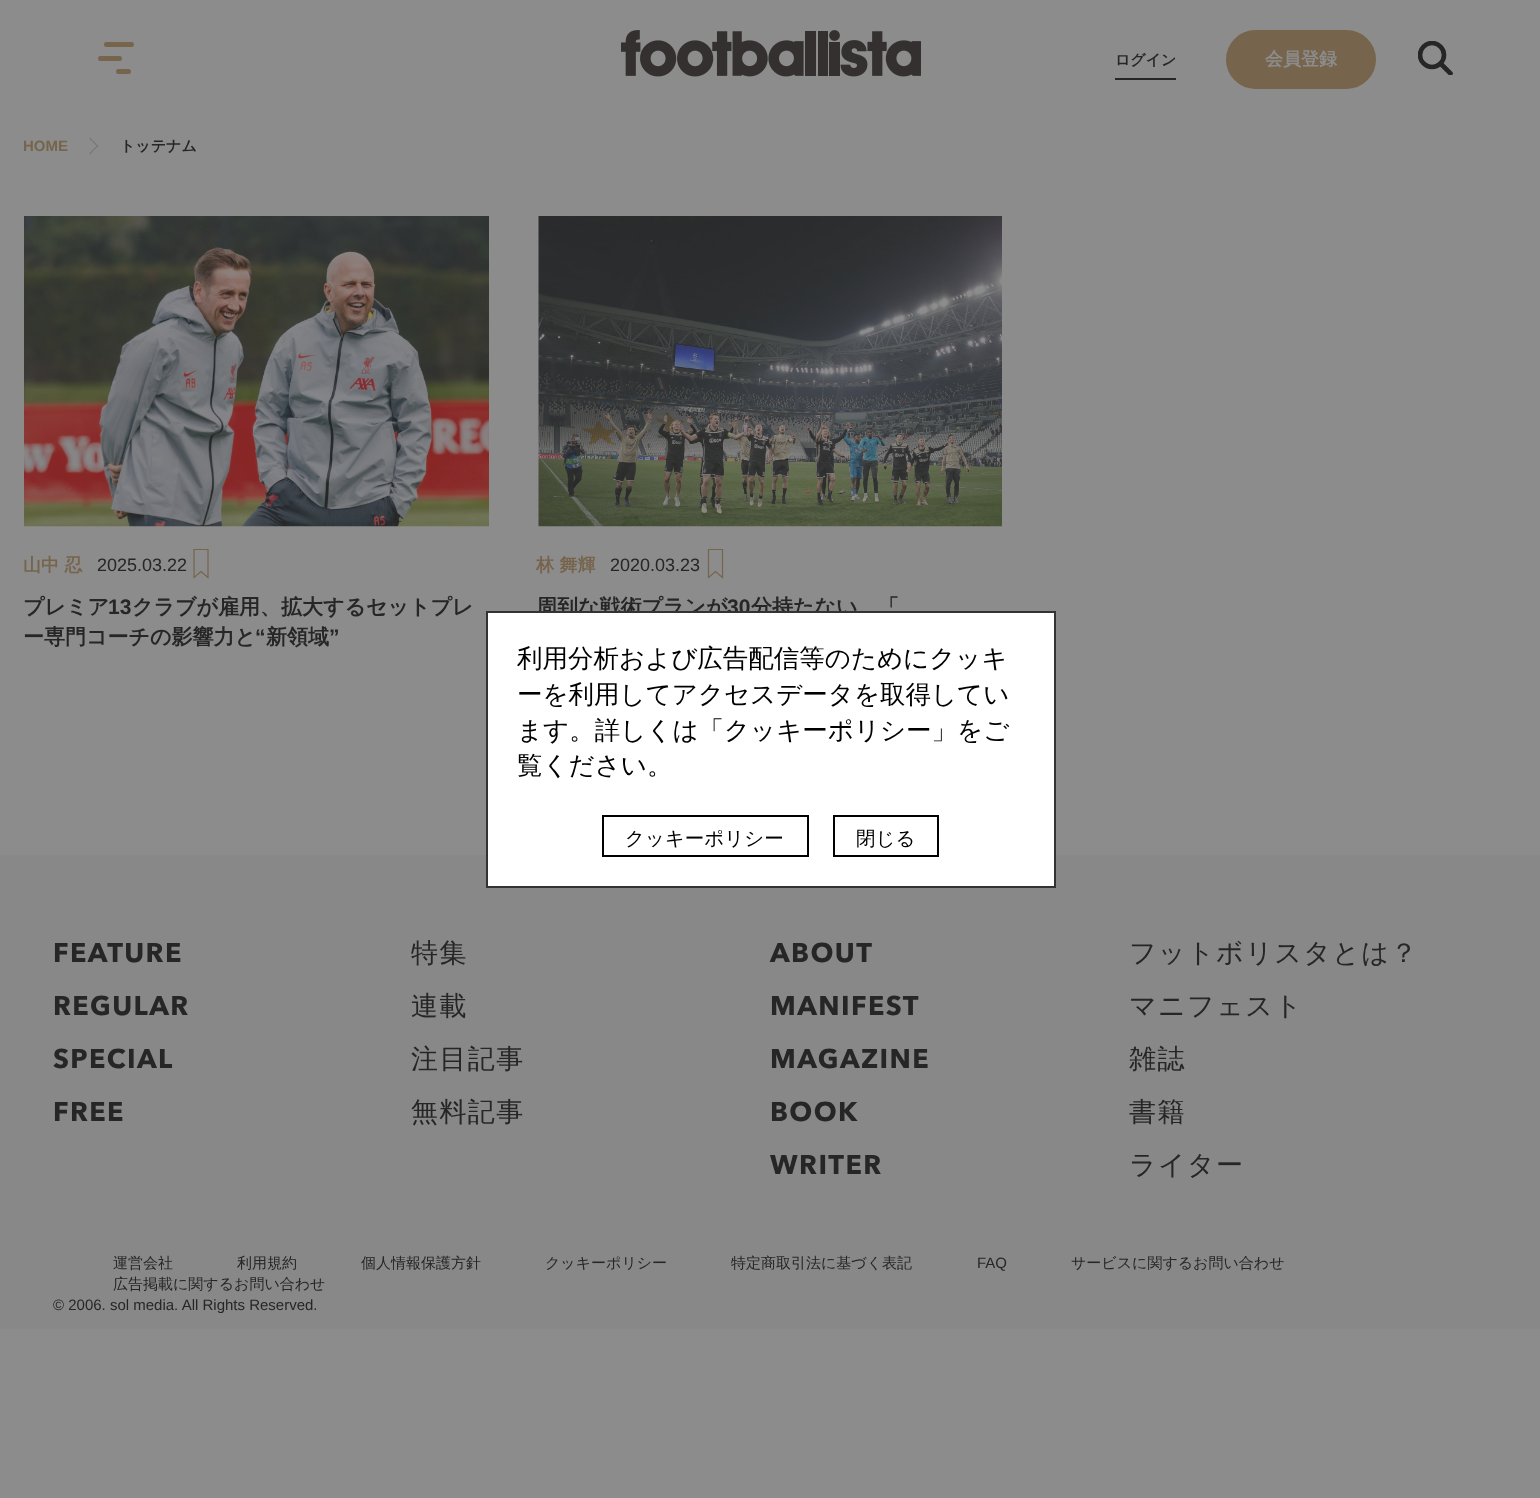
async function draw(canvas) {
  canvas.width = 1540
  canvas.height = 1498
  const ctx = canvas.getContext('2d')
  ctx.miterLimit = 4
  ctx.fontKerning = 'normal'
  async function loadImage(src) {
    const img = new Image()
    img.src = src
    await img.decode()
    return img
  }

  ctx.fillStyle = '#8c8c8c'
  ctx.fillRect(0, 0, 1540, 1498)
  ctx.fillStyle = '#76654c'
  ctx.beginPath()
  ctx.roundRect(104, 42, 30, 5, 2.5)
  ctx.fill()
  ctx.beginPath()
  ctx.roundRect(98, 56, 24, 5, 2.5)
  ctx.fill()
  ctx.beginPath()
  ctx.roundRect(116, 69, 15, 5, 2.5)
  ctx.fill()
  ctx.drawImage(await loadImage('image0.png'), 621, 30, 300, 47)
  ctx.fillStyle = '#262626'
  ctx.fillRect(1115, 78, 61, 2)
  ctx.font = 'bold 15px WenQuanYi Zen Hei'
  ctx.fillText('ログイン', 1115, 65)
  ctx.fillStyle = '#76654c'
  ctx.beginPath()
  ctx.roundRect(1227, 31, 148, 57, 28.5)
  ctx.fill()
  ctx.strokeStyle = '#76654c'
  ctx.lineWidth = 2
  ctx.stroke()
  ctx.font = 'bold 18px WenQuanYi Zen Hei'
  ctx.fillStyle = '#8c8c8c'
  ctx.fillText('会員登録', 1265, 65)
  ctx.save()
  ctx.beginPath()
  ctx.rect(1418, 41, 36, 34)
  ctx.clip()
  ctx.beginPath()
  ctx.arc(1432, 55, 12, 0, 2 * Math.PI)
  ctx.strokeStyle = '#262626'
  ctx.lineWidth = 4.6
  ctx.stroke()
  ctx.beginPath()
  ctx.moveTo(1441, 64)
  ctx.lineTo(1450.5, 73.5)
  ctx.lineCap = 'round'
  ctx.stroke()
  ctx.restore()
  ctx.font = 'bold 15px Liberation Sans'
  ctx.fillStyle = '#76654c'
  ctx.fillText('HOME', 23, 151)
  ctx.fillStyle = '#7a7a7a'
  ctx.beginPath()
  ctx.moveTo(89, 138.5)
  ctx.lineTo(90, 137.5)
  ctx.lineTo(98.5, 146)
  ctx.lineTo(97.5, 147)
  ctx.closePath()
  ctx.fill()
  ctx.beginPath()
  ctx.moveTo(89, 153.5)
  ctx.lineTo(97.5, 145)
  ctx.lineTo(98.5, 146)
  ctx.lineTo(90, 154.5)
  ctx.closePath()
  ctx.fill()
  ctx.font = 'bold 15px WenQuanYi Zen Hei'
  ctx.fillStyle = '#262626'
  ctx.fillText('トッテナム', 120, 151)
  ctx.drawImage(await loadImage('image1.png'), 24, 216, 465, 311)
  ctx.font = 'bold 18px WenQuanYi Zen Hei'
  ctx.fillStyle = '#76654c'
  ctx.fillText('山中 忍', 23, 571)
  ctx.font = '18px Liberation Sans'
  ctx.fillStyle = '#262626'
  ctx.fillText('2025.03.22', 97, 571)
  ctx.save()
  ctx.beginPath()
  ctx.rect(188, 549, 27, 30)
  ctx.clip()
  ctx.beginPath()
  ctx.moveTo(208, 577.5)
  ctx.lineTo(201, 571.5)
  ctx.lineTo(194, 577.5)
  ctx.lineTo(194, 549.5)
  ctx.lineTo(208, 549.5)
  ctx.closePath()
  ctx.lineWidth = 1.2
  ctx.stroke()
  ctx.restore()
  ctx.font = 'bold 21px WenQuanYi Zen Hei'
  ctx.fillText('プレミア', 23, 614)
  ctx.font = 'bold 21px Liberation Sans'
  ctx.fillText('13', 108, 614)
  ctx.font = 'bold 21px WenQuanYi Zen Hei'
  ctx.fillText('クラブが雇用、拡大するセットプレ', 132, 614)
  ctx.fillText('ー専門コーチの影響力と', 23, 644)
  ctx.font = 'bold 21px Liberation Sans'
  ctx.fillText('“', 255, 644)
  ctx.font = 'bold 21px WenQuanYi Zen Hei'
  ctx.fillText('新領域', 266, 644)
  ctx.font = 'bold 21px Liberation Sans'
  ctx.fillText('”', 329, 644)
  ctx.drawImage(await loadImage('image2.png'), 538, 216, 464, 311)
  ctx.font = 'bold 18px WenQuanYi Zen Hei'
  ctx.fillStyle = '#76654c'
  ctx.fillText('林 舞輝', 536, 571)
  ctx.font = '18px Liberation Sans'
  ctx.fillStyle = '#262626'
  ctx.fillText('2020.03.23', 610, 571)
  ctx.save()
  ctx.beginPath()
  ctx.rect(702, 549, 27, 30)
  ctx.clip()
  ctx.beginPath()
  ctx.moveTo(722.5, 577.5)
  ctx.lineTo(715.5, 571.5)
  ctx.lineTo(708.5, 577.5)
  ctx.lineTo(708.5, 549.5)
  ctx.lineTo(722.5, 549.5)
  ctx.closePath()
  ctx.lineWidth = 1.2
  ctx.stroke()
  ctx.restore()
  ctx.font = 'bold 21px WenQuanYi Zen Hei'
  ctx.fillText('周到な戦術プランが', 536, 614)
  ctx.font = 'bold 21px Liberation Sans'
  ctx.fillText('30', 727, 614)
  ctx.font = 'bold 21px WenQuanYi Zen Hei'
  ctx.fillText('分持たない', 751, 614)
  ctx.fillText('「', 878, 614)
  ctx.fillStyle = '#888'
  ctx.fillRect(0, 855, 1540, 474)
  ctx.fillStyle = '#fff'
  ctx.beginPath()
  ctx.rect(487, 612, 568, 275)
  ctx.fill()
  ctx.strokeStyle = '#333'
  ctx.stroke()
  ctx.font = '500 25.5px WenQuanYi Zen Hei'
  ctx.fillStyle = '#000'
  ctx.fillText('利用分析および広告配信等のためにクッキ', 517, 667)
  ctx.fillText('ーを利用してアクセスデータを取得してい', 517, 703)
  ctx.fillText('ます。詳しくは「クッキーポリシー」をご', 517, 739)
  ctx.fillText('覧ください。', 517, 774)
  ctx.strokeStyle = '#000'
  ctx.strokeRect(603, 816, 205, 40)
  ctx.font = '500 19.5px WenQuanYi Zen Hei'
  ctx.fillText('クッキーポリシー', 625, 845)
  ctx.strokeRect(834, 816, 104, 40)
  ctx.fillText('閉じる', 856, 845)
  ctx.letterSpacing = '1.4px'
  ctx.font = '27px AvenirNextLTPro'
  ctx.fillStyle = '#262626'
  ctx.fillText('FEATURE', 53, 962)
  ctx.font = '500 27px WenQuanYi Zen Hei'
  ctx.fillText('特集', 411, 962)
  ctx.font = '27px AvenirNextLTPro'
  ctx.fillText('REGULAR', 53, 1015)
  ctx.font = '500 27px WenQuanYi Zen Hei'
  ctx.fillText('連載', 411, 1015)
  ctx.font = '27px AvenirNextLTPro'
  ctx.fillText('SPECIAL', 53, 1068)
  ctx.font = '500 27px WenQuanYi Zen Hei'
  ctx.fillText('注目記事', 411, 1068)
  ctx.font = '27px AvenirNextLTPro'
  ctx.fillText('FREE', 53, 1121)
  ctx.font = '500 27px WenQuanYi Zen Hei'
  ctx.fillText('無料記事', 411, 1121)
  ctx.font = '27px AvenirNextLTPro'
  ctx.fillText('ABOUT', 770, 962)
  ctx.font = '500 27px WenQuanYi Zen Hei'
  ctx.fillText('フットボリスタとは？', 1129, 962)
  ctx.font = '27px AvenirNextLTPro'
  ctx.fillText('MANIFEST', 770, 1015)
  ctx.font = '500 27px WenQuanYi Zen Hei'
  ctx.fillText('マニフェスト', 1129, 1015)
  ctx.font = '27px AvenirNextLTPro'
  ctx.fillText('MAGAZINE', 770, 1068)
  ctx.font = '500 27px WenQuanYi Zen Hei'
  ctx.fillText('雑誌', 1129, 1068)
  ctx.font = '27px AvenirNextLTPro'
  ctx.fillText('BOOK', 770, 1121)
  ctx.font = '500 27px WenQuanYi Zen Hei'
  ctx.fillText('書籍', 1129, 1121)
  ctx.font = '27px AvenirNextLTPro'
  ctx.fillText('WRITER', 770, 1174)
  ctx.font = '500 27px WenQuanYi Zen Hei'
  ctx.fillText('ライター', 1129, 1174)
  ctx.letterSpacing = '0px'
  ctx.font = '500 15px WenQuanYi Zen Hei'
  ctx.fillText('運営会社', 113, 1268)
  ctx.fillText('利用規約', 237, 1268)
  ctx.fillText('個人情報保護方針', 361, 1268)
  ctx.fillText('クッキーポリシー', 545, 1268)
  ctx.fillText('特定商取引法に基づく表記', 731, 1268)
  ctx.font = '15px Liberation Sans'
  ctx.fillText('FAQ', 977, 1268)
  ctx.font = '500 15px WenQuanYi Zen Hei'
  ctx.fillText('サービスに関するお問い合わせ', 1071, 1268)
  ctx.fillText('広告掲載に関するお問い合わせ', 113, 1289)
  ctx.font = '15px Liberation Sans'
  ctx.fillText('© 2006. sol media. All Rights Reserved.', 53, 1310)
}

draw(document.querySelector('canvas'))
